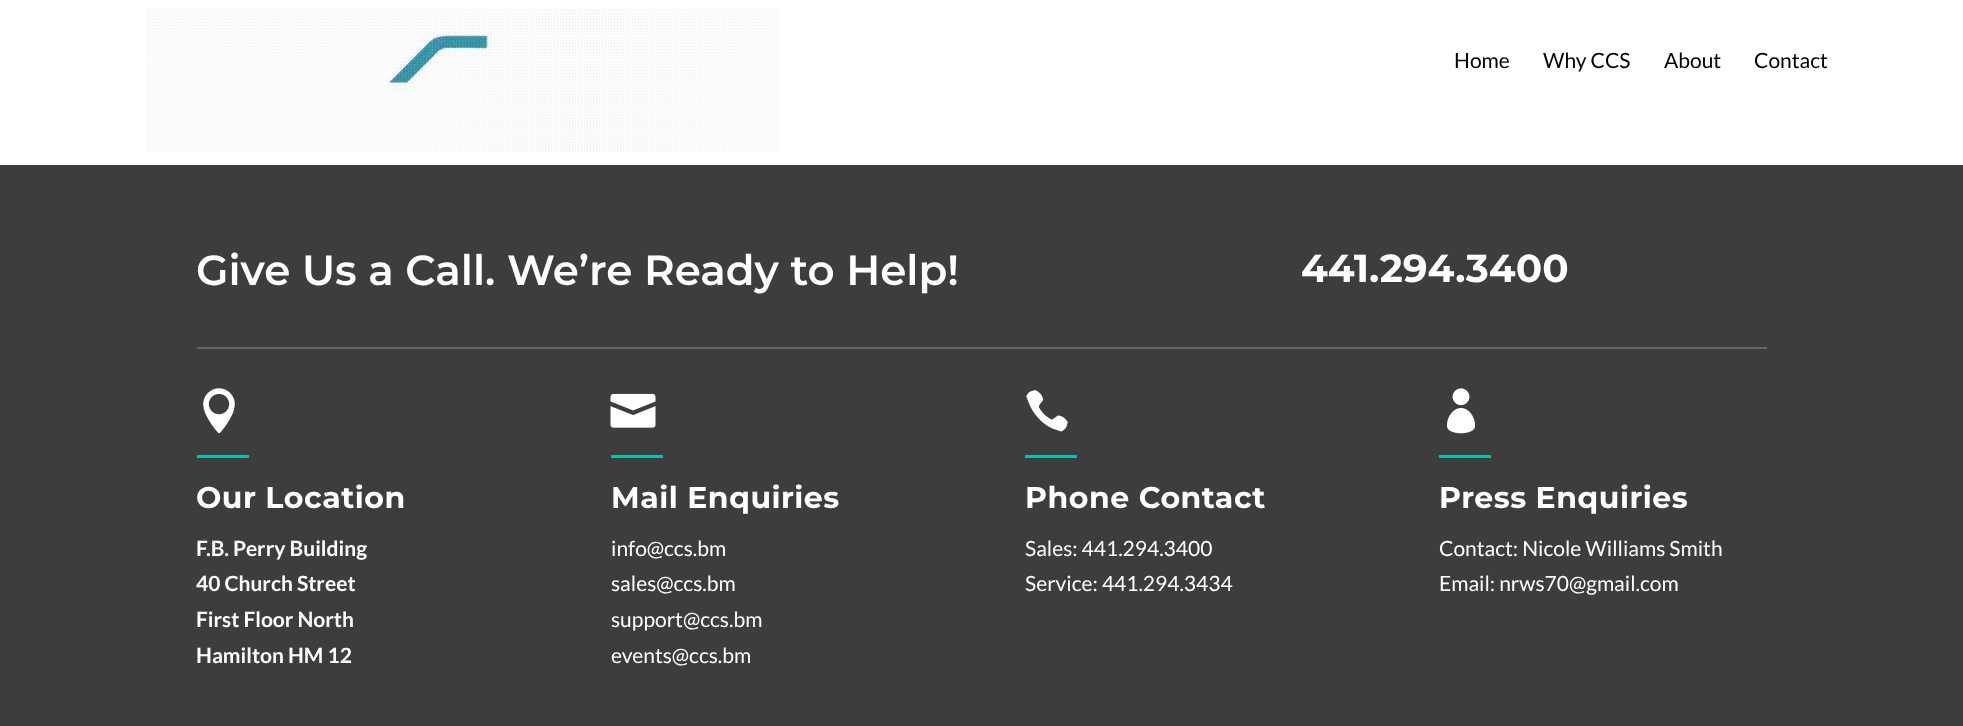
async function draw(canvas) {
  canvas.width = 1963
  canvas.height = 726
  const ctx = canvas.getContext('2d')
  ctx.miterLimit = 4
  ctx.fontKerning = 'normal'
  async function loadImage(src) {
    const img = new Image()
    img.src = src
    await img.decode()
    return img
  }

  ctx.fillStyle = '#fff'
  ctx.fillRect(0, 0, 1963, 726)
  ctx.drawImage(await loadImage('image0.png'), 146, 7, 634, 145)
  ctx.font = '21px Lato'
  ctx.fillStyle = '#000'
  ctx.fillText('Home', 1454, 68)
  ctx.fillText('Why CCS', 1543, 68)
  ctx.fillText('About', 1664, 68)
  ctx.fillText('Contact', 1754, 68)
  ctx.fillStyle = '#3d3d3d'
  ctx.fillRect(0, 165, 1963, 561)
  ctx.fillStyle = '#666'
  ctx.fillRect(197, 347, 1570, 2)
  ctx.font = '600 42px Montserrat'
  ctx.fillStyle = '#fff'
  ctx.fillText('Give Us a Call. We’re Ready to Help!', 196, 285)
  ctx.font = 'bold 39px Montserrat'
  ctx.fillText('441.294.3400', 1301, 282)
  ctx.drawImage(await loadImage('image1.png'), 203, 388, 32, 46)
  ctx.fillStyle = '#03c4ad'
  ctx.fillRect(197, 455, 52, 3)
  ctx.letterSpacing = '0.5px'
  ctx.font = 'bold 30px Montserrat'
  ctx.fillStyle = '#fff'
  ctx.fillText('Our Location', 196, 508)
  ctx.letterSpacing = '0px'
  ctx.font = 'bold 21px Lato'
  ctx.fillText('F.B. Perry Building', 196, 556)
  ctx.fillText('40 Church Street', 196, 591)
  ctx.fillText('First Floor North', 196, 627)
  ctx.fillText('Hamilton HM 12', 196, 663)
  ctx.drawImage(await loadImage('image2.png'), 610, 393, 46, 35)
  ctx.fillStyle = '#03c4ad'
  ctx.fillRect(611, 455, 52, 3)
  ctx.letterSpacing = '0.5px'
  ctx.font = 'bold 30px Montserrat'
  ctx.fillStyle = '#fff'
  ctx.fillText('Mail Enquiries', 611, 508)
  ctx.letterSpacing = '0px'
  ctx.font = '21px Lato'
  ctx.fillText('info@ccs.bm', 611, 556)
  ctx.fillText('sales@ccs.bm', 611, 591)
  ctx.fillText('support@ccs.bm', 611, 627)
  ctx.fillText('events@ccs.bm', 611, 663)
  ctx.drawImage(await loadImage('image3.png'), 1026, 390, 42, 42)
  ctx.fillStyle = '#03c4ad'
  ctx.fillRect(1025, 455, 52, 3)
  ctx.letterSpacing = '0.5px'
  ctx.font = 'bold 30px Montserrat'
  ctx.fillStyle = '#fff'
  ctx.fillText('Phone Contact', 1025, 508)
  ctx.letterSpacing = '0px'
  ctx.font = '21px Lato'
  ctx.fillText('Sales: 441.294.3400', 1025, 556)
  ctx.fillText('Service: 441.294.3434', 1025, 591)
  ctx.drawImage(await loadImage('image4.png'), 1446, 388, 30, 46)
  ctx.fillStyle = '#03c4ad'
  ctx.fillRect(1439, 455, 52, 3)
  ctx.letterSpacing = '0.5px'
  ctx.font = 'bold 30px Montserrat'
  ctx.fillStyle = '#fff'
  ctx.fillText('Press Enquiries', 1439, 508)
  ctx.letterSpacing = '0px'
  ctx.font = '21px Lato'
  ctx.fillText('Contact: Nicole Williams Smith', 1439, 556)
  ctx.fillText('Email: nrws70@gmail.com', 1439, 591)
}

draw(document.querySelector('canvas'))
